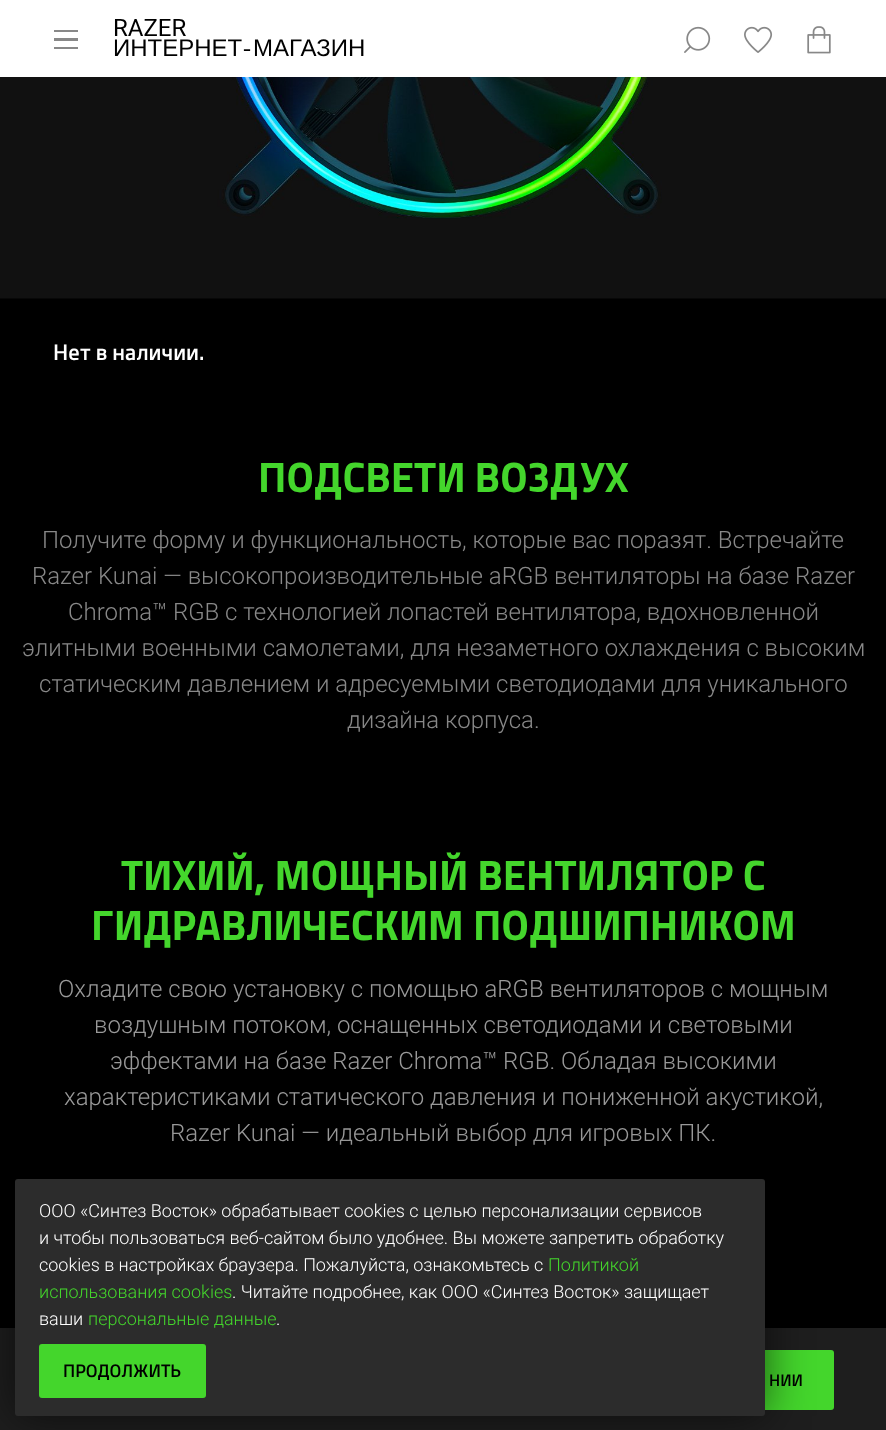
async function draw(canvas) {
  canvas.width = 886
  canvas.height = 1430
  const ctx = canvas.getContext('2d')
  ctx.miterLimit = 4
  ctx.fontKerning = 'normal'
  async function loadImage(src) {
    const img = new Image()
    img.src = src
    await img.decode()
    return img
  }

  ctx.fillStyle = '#000'
  ctx.fillRect(0, 0, 886, 1430)
  ctx.fillStyle = '#fff'
  ctx.fillRect(0, 0, 886, 77)
  ctx.fillStyle = '#888'
  ctx.fillRect(54, 30, 24, 2)
  ctx.fillRect(54, 38, 24, 3)
  ctx.fillRect(54, 47, 24, 2)
  ctx.font = '24px Roboto'
  ctx.fillStyle = '#000'
  ctx.fillText('RAZER', 113, 36)
  ctx.font = '24px Liberation Sans'
  ctx.fillText('ИНТЕРНЕТ', 113, 56)
  ctx.font = '24px Roboto'
  ctx.fillText('‑', 243, 56)
  ctx.font = '24px Liberation Sans'
  ctx.fillText('МАГАЗИН', 253, 56)
  ctx.drawImage(await loadImage('image0.png'), 684, 26, 27, 27)
  ctx.drawImage(await loadImage('image1.png'), 744, 26, 29, 27)
  ctx.drawImage(await loadImage('image2.png'), 807, 26, 24, 28)
  ctx.drawImage(await loadImage('image3.png'), 0, 77, 886, 222)
  ctx.font = '600 22.5px "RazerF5"'
  ctx.fillStyle = '#fff'
  ctx.fillText('Нет в наличии.', 53, 360)
  ctx.font = 'bold 42px "RazerF5"'
  ctx.fillStyle = '#44d62c'
  ctx.fillText('ПОДСВЕТИ ВОЗДУХ', 258, 492)
  ctx.font = '300 24px Roboto'
  ctx.fillStyle = '#888'
  ctx.fillText('Получите форму и функциональность, которые вас поразят. Встречайте', 42, 548)
  ctx.fillText('Razer Kunai — высокопроизводительные aRGB вентиляторы на базе Razer', 32, 584)
  ctx.fillText('Chroma™ RGB с технологией лопастей вентилятора, вдохновленной', 68, 620)
  ctx.fillText('элитными военными самолетами, для незаметного охлаждения с высоким', 22, 656)
  ctx.fillText('статическим давлением и адресуемыми светодиодами для уникального', 39, 692)
  ctx.fillText('дизайна корпуса.', 347, 728)
  ctx.font = 'bold 42px "RazerF5"'
  ctx.fillStyle = '#44d62c'
  ctx.fillText('ТИХИЙ, МОЩНЫЙ ВЕНТИЛЯТОР С', 121, 890)
  ctx.fillText('ГИДРАВЛИЧЕСКИМ ПОДШИПНИКОМ', 91, 940)
  ctx.font = '300 24px Roboto'
  ctx.fillStyle = '#999'
  ctx.fillText('Охладите свою установку с помощью aRGB вентиляторов с мощным', 58, 997)
  ctx.fillText('воздушным потоком, оснащенных светодиодами и световыми', 94, 1033)
  ctx.fillText('эффектами на базе Razer Chroma™ RGB. Обладая высокими', 110, 1069)
  ctx.fillText('характеристиками статического давления и пониженной акустикой,', 64, 1105)
  ctx.fillText('Razer Kunai — идеальный выбор для игровых ПК.', 170, 1141)
  ctx.fillStyle = '#1e1e1e'
  ctx.fillRect(0, 1328, 886, 102)
  ctx.fillStyle = '#44d62c'
  ctx.beginPath()
  ctx.roundRect(557, 1350, 277, 60, 3)
  ctx.fill()
  ctx.fillStyle = '#00000099'
  ctx.filter = 'blur(22.5px)'
  ctx.beginPath()
  ctx.roundRect(15, 1179, 750, 237, 3)
  ctx.fill()
  ctx.filter = 'none'
  ctx.fillStyle = '#2c2c2c'
  ctx.beginPath()
  ctx.roundRect(15, 1179, 750, 237, 3)
  ctx.fill()
  ctx.font = '300 18px Roboto'
  ctx.fillStyle = '#fff'
  ctx.fillText('ООО «Синтез Восток» обрабатывает cookies с целью персонализации сервисов', 39, 1217)
  ctx.fillText('и чтобы пользоваться веб-сайтом было удобнее. Вы можете запретить обработку', 39, 1244)
  ctx.fillText('cookies в настройках браузера. Пожалуйста, ознакомьтесь с', 39, 1271)
  ctx.fillStyle = '#44d62c'
  ctx.fillText('Политикой', 548, 1271)
  ctx.fillText('использования cookies', 39, 1298)
  ctx.fillStyle = '#fff'
  ctx.fillText('. Читайте подробнее, как ООО «Синтез Восток» защищает', 232, 1298)
  ctx.fillText('ваши', 39, 1325)
  ctx.fillStyle = '#44d62c'
  ctx.fillText('персональные данные', 88, 1325)
  ctx.fillStyle = '#fff'
  ctx.fillText('.', 276, 1325)
  ctx.fillStyle = '#44d62c'
  ctx.beginPath()
  ctx.roundRect(39, 1344, 167, 54, 3)
  ctx.fill()
  ctx.font = '600 18px "RazerF5"'
  ctx.fillStyle = '#000'
  ctx.fillText('ПРОДОЛЖИТЬ', 63, 1377)
  ctx.font = '600 16.5px "RazerF5"'
  ctx.fillText('НИИ', 769, 1386)
}

draw(document.querySelector('canvas'))
